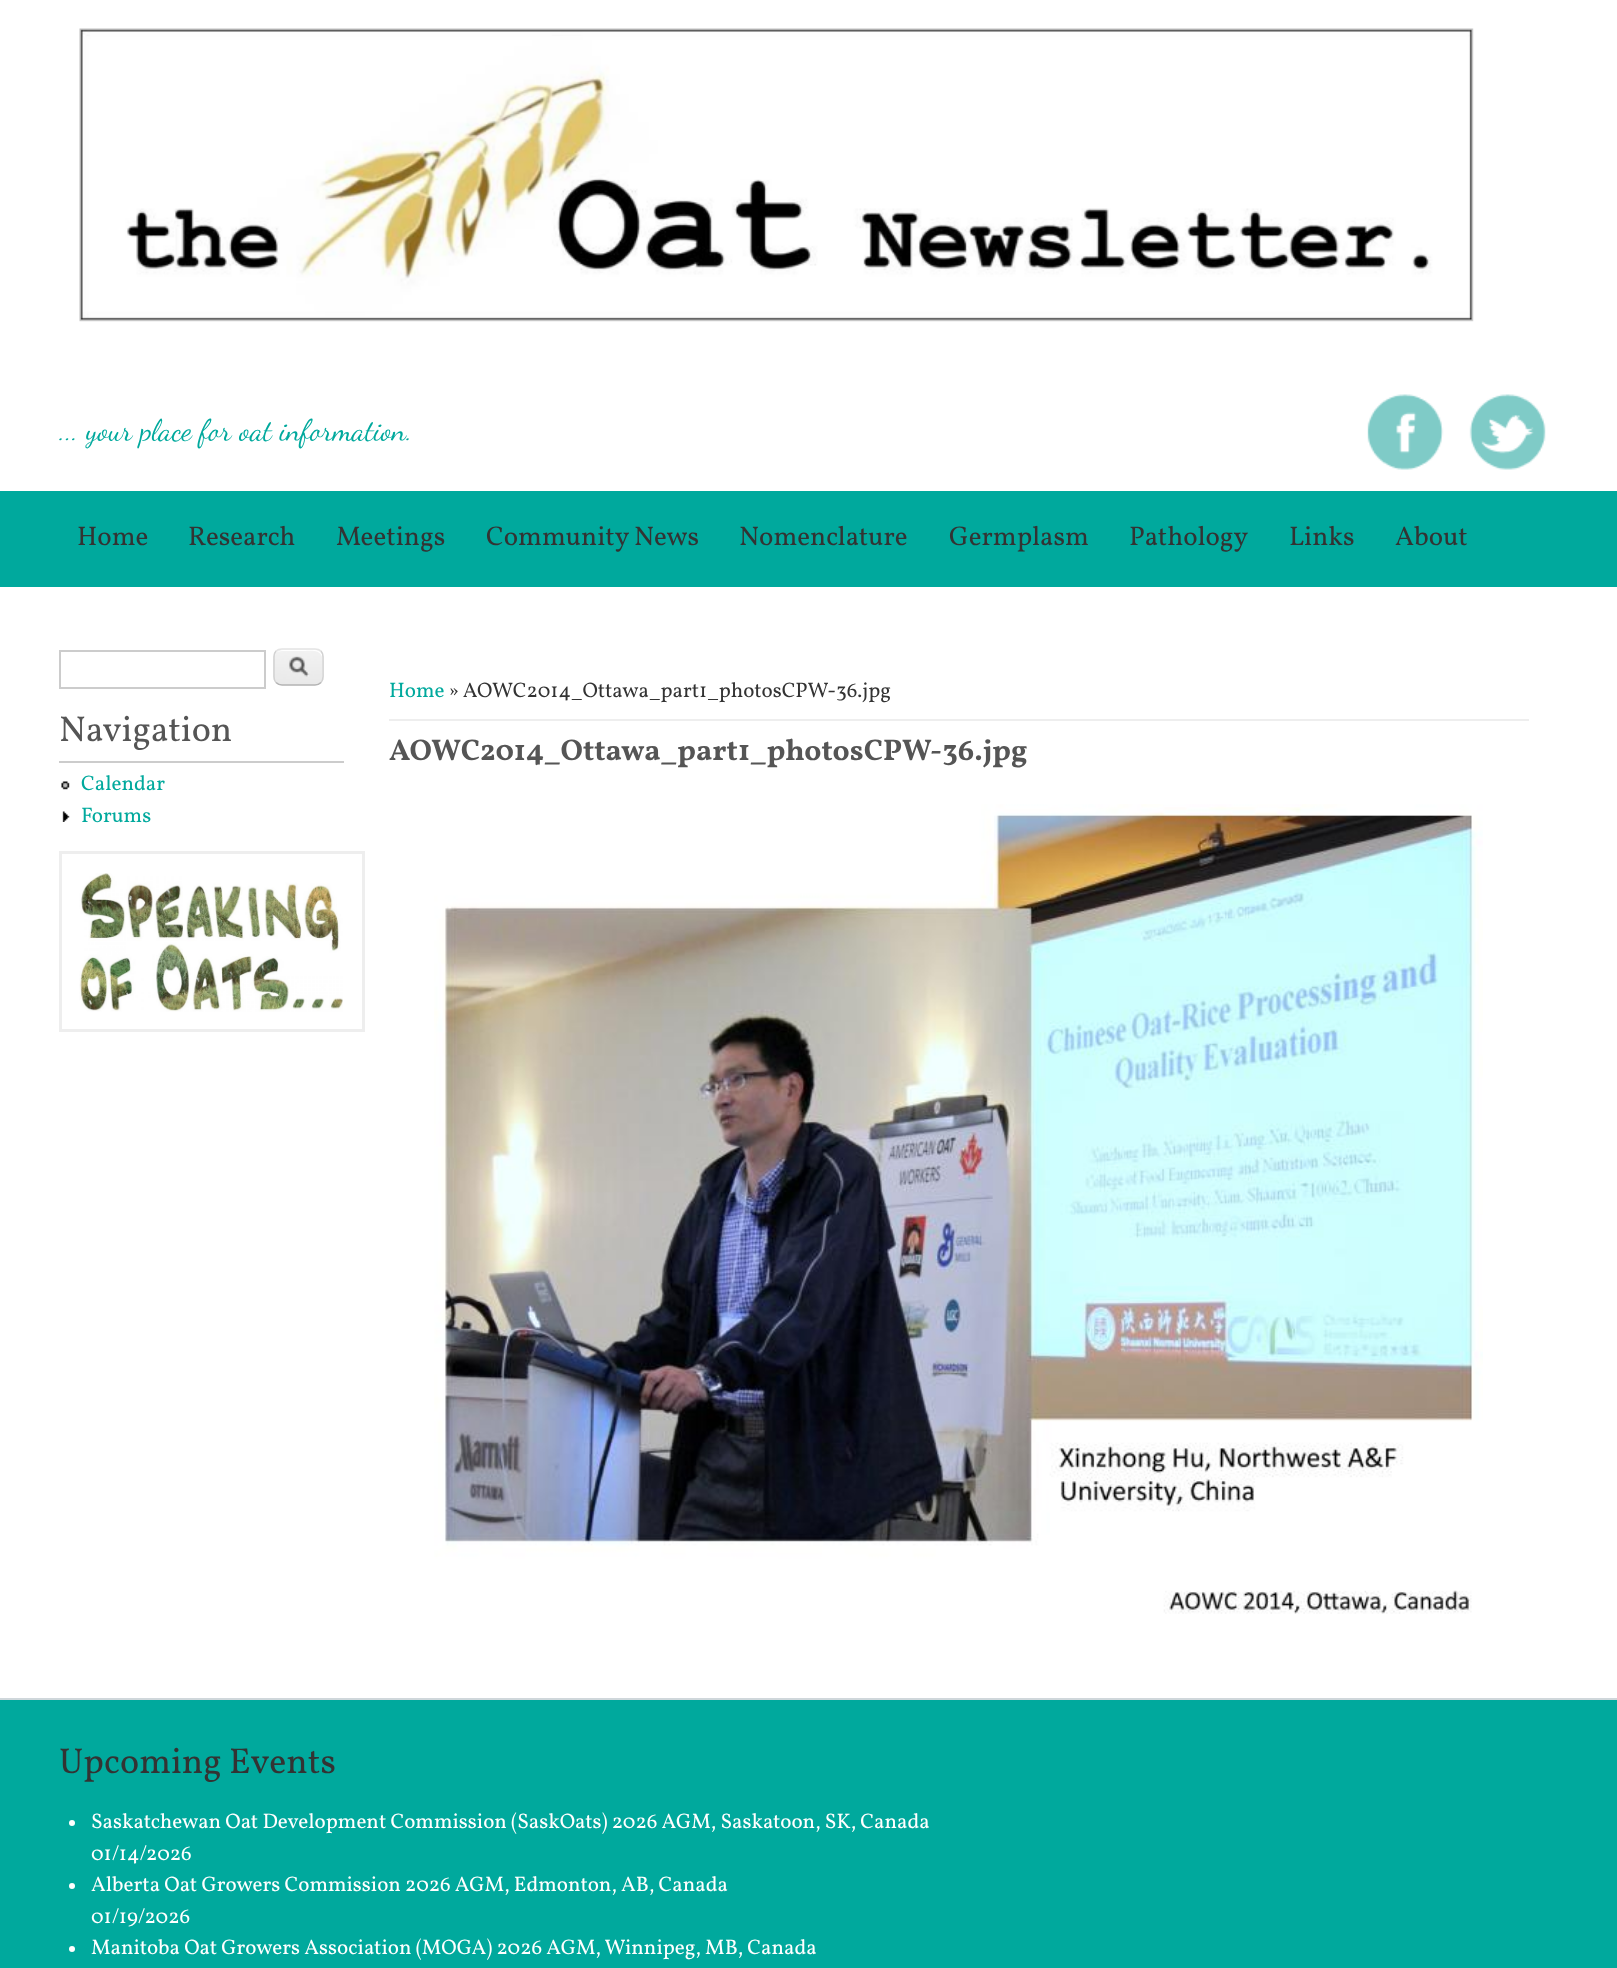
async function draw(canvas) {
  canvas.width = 1617
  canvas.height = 1968
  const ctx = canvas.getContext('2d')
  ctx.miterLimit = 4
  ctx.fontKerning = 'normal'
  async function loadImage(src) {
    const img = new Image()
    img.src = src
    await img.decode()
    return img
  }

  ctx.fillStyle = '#fff'
  ctx.fillRect(0, 0, 1617, 1968)
  ctx.drawImage(await loadImage('image0.png'), 79, 28, 1395, 294)
  ctx.font = '30px Dancing Script'
  ctx.fillStyle = '#00a99d'
  ctx.fillText('... your place for oat information.', 59, 440)
  ctx.drawImage(await loadImage('image1.png'), 1367, 394, 77, 76)
  ctx.drawImage(await loadImage('image2.png'), 1469, 394, 77, 76)
  ctx.fillRect(0, 491, 1617, 96)
  ctx.font = '27px Vollkorn'
  ctx.fillStyle = '#333'
  ctx.fillText('Home', 77, 545)
  ctx.fillText('Research', 188, 545)
  ctx.fillText('Meetings', 336, 545)
  ctx.fillText('Community News', 486, 545)
  ctx.fillText('Nomenclature', 739, 545)
  ctx.fillText('Germplasm', 949, 545)
  ctx.fillText('Pathology', 1129, 545)
  ctx.fillText('Links', 1289, 545)
  ctx.fillText('About', 1395, 545)
  ctx.strokeStyle = '#ccc'
  ctx.lineWidth = 2
  ctx.strokeRect(60, 651, 205, 37)
  ctx.drawImage(await loadImage('image3.png'), 273, 649, 51, 37)
  ctx.fillStyle = '#fff'
  ctx.beginPath()
  ctx.moveTo(282, 651)
  ctx.lineTo(304, 651)
  ctx.bezierCurveTo(309, 651, 320, 649, 322, 657)
  ctx.lineTo(322, 680)
  ctx.bezierCurveTo(322, 679, 323, 678, 323, 676)
  ctx.lineTo(323, 658)
  ctx.bezierCurveTo(323, 654, 319, 650, 315, 650)
  ctx.lineTo(283, 650)
  ctx.bezierCurveTo(281, 650, 279, 651, 277, 652)
  ctx.bezierCurveTo(279, 652, 280, 651, 282, 651)
  ctx.closePath()
  ctx.fill()
  ctx.beginPath()
  ctx.moveTo(276, 651)
  ctx.bezierCurveTo(277.5, 649.5, 280, 649, 282, 649)
  ctx.lineTo(315, 649)
  ctx.bezierCurveTo(317, 649, 319.5, 649.5, 321, 651)
  ctx.strokeStyle = '#e4e4e4'
  ctx.lineWidth = 1.5
  ctx.stroke()
  ctx.beginPath()
  ctx.moveTo(321, 651)
  ctx.bezierCurveTo(322.5, 652.5, 323, 655, 323, 657)
  ctx.lineTo(323, 676.5)
  ctx.bezierCurveTo(323, 678.5, 322.5, 681, 321, 682.5)
  ctx.strokeStyle = '#d2d2d2'
  ctx.stroke()
  ctx.beginPath()
  ctx.moveTo(321, 682.5)
  ctx.bezierCurveTo(319.5, 684, 317, 685, 315, 685)
  ctx.lineTo(282, 685)
  ctx.bezierCurveTo(280, 685, 277.5, 684, 276, 682.5)
  ctx.strokeStyle = '#b4b4b4'
  ctx.stroke()
  ctx.beginPath()
  ctx.moveTo(276, 682.5)
  ctx.bezierCurveTo(274.5, 681, 274, 678.5, 274, 676.5)
  ctx.lineTo(274, 657)
  ctx.bezierCurveTo(274, 655, 274.5, 652.5, 276, 651)
  ctx.strokeStyle = '#d2d2d2'
  ctx.stroke()
  ctx.fillStyle = '#ccc'
  ctx.fillRect(59, 761, 285, 2)
  ctx.font = '36px Vollkorn'
  ctx.fillStyle = '#555'
  ctx.fillText('Navigation', 59, 741)
  ctx.drawImage(await loadImage('image4.png'), 61, 781, 9, 9)
  ctx.font = '21px Vollkorn'
  ctx.fillStyle = '#00a99d'
  ctx.fillText('Calendar', 81, 790)
  ctx.drawImage(await loadImage('image5.png'), 62, 811, 8, 11)
  ctx.fillText('Forums', 81, 822)
  ctx.strokeStyle = '#eee'
  ctx.lineWidth = 3
  ctx.strokeRect(60.5, 852.5, 303, 178)
  ctx.drawImage(await loadImage('image6.png'), 79, 873, 264, 139)
  ctx.fillStyle = '#eee'
  ctx.fillRect(389, 719, 1140, 2)
  ctx.fillStyle = '#00a99d'
  ctx.fillText('Home', 389, 697)
  ctx.fillStyle = '#333'
  ctx.fillText('» AOWC2014_Ottawa_part1_photosCPW-36.jpg', 448, 697)
  ctx.font = 'bold 30px Vollkorn'
  ctx.fillStyle = '#555'
  ctx.fillText('AOWC2014_Ottawa_part1_photosCPW-36.jpg', 389, 760)
  ctx.drawImage(await loadImage('image7.png'), 434, 804, 1049, 810)
  ctx.fillStyle = '#00a99d'
  ctx.fillRect(0, 1700, 1617, 268)
  ctx.fillStyle = '#cfd7db'
  ctx.fillRect(0, 1698, 1617, 2)
  ctx.font = '36px Vollkorn'
  ctx.fillStyle = '#333'
  ctx.fillText('Upcoming Events', 59, 1773)
  ctx.fillStyle = '#fff'
  ctx.beginPath()
  ctx.arc(72, 1823, 3, 0, 2 * Math.PI)
  ctx.fill()
  ctx.font = '21px Vollkorn'
  ctx.fillText('Saskatchewan Oat Development Commission (SaskOats) 2026 AGM, Saskatoon, SK, Canada', 91, 1828)
  ctx.fillText('01/14/2026', 91, 1860)
  ctx.beginPath()
  ctx.arc(72, 1886, 3, 0, 2 * Math.PI)
  ctx.fill()
  ctx.fillText('Alberta Oat Growers Commission 2026 AGM, Edmonton, AB, Canada', 91, 1891)
  ctx.fillText('01/19/2026', 91, 1923)
  ctx.beginPath()
  ctx.arc(72, 1949, 3, 0, 2 * Math.PI)
  ctx.fill()
  ctx.fillText('Manitoba Oat Growers Association (MOGA) 2026 AGM, Winnipeg, MB, Canada', 91, 1954)
}

draw(document.querySelector('canvas'))
